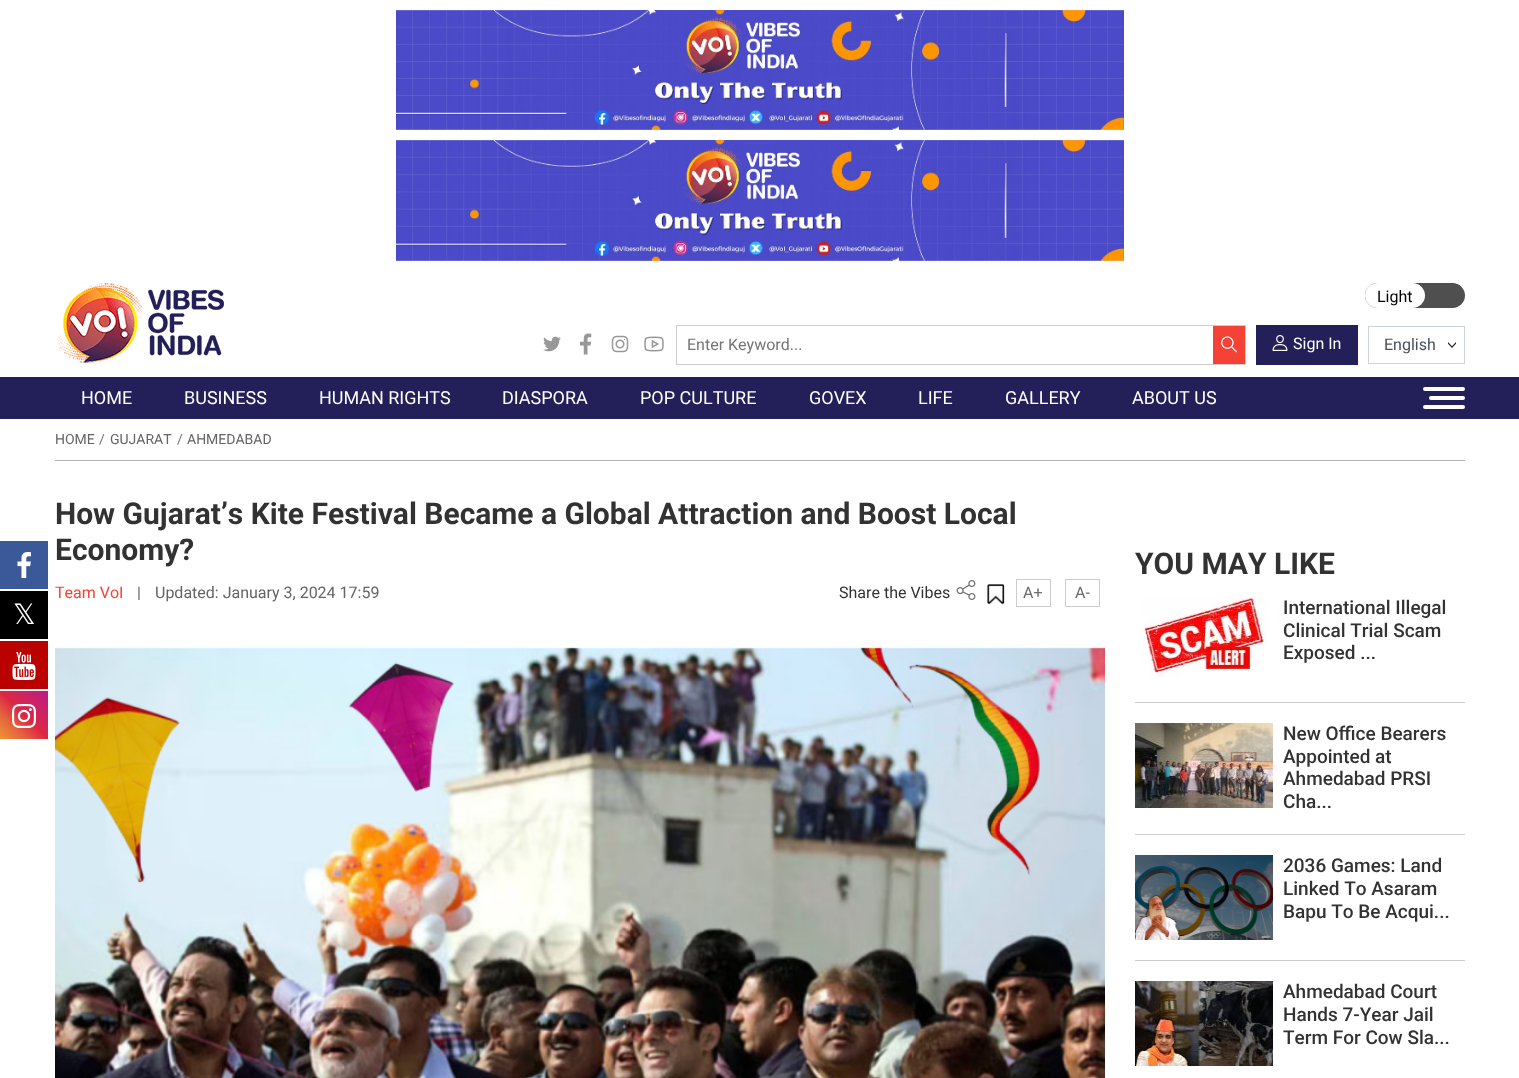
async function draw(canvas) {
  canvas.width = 1519
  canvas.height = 1078
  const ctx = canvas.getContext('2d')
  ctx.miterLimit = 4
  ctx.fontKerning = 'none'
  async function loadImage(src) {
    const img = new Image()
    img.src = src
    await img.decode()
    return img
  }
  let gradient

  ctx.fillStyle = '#fff'
  ctx.fillRect(0, 0, 1519, 1078)
  ctx.drawImage(await loadImage('image0.png'), 396, 10, 728, 120)
  ctx.drawImage(await loadImage('image1.png'), 396, 140, 728, 121)
  ctx.drawImage(await loadImage('image2.png'), 56, 283, 168, 80)
  ctx.fillStyle = '#4f4f4f'
  ctx.beginPath()
  ctx.roundRect(1365, 283, 100, 25, 12.5)
  ctx.fill()
  ctx.fillStyle = '#fff'
  ctx.beginPath()
  ctx.roundRect(1365, 283, 60, 25, 12.5)
  ctx.fill()
  ctx.font = '16px Roboto'
  ctx.fillStyle = '#000'
  ctx.fillText('Light', 1377, 302)
  ctx.drawImage(await loadImage('image3.png'), 543, 336, 18, 16)
  ctx.drawImage(await loadImage('image4.png'), 580, 333, 12, 22)
  ctx.drawImage(await loadImage('image5.png'), 611, 335, 18, 18)
  ctx.drawImage(await loadImage('image6.png'), 644, 336, 20, 16)
  ctx.strokeStyle = '#ccc'
  ctx.strokeRect(676.5, 325.5, 569, 39)
  ctx.fillStyle = '#757575'
  ctx.fillText('Enter Keyword...', 687, 350)
  ctx.fillStyle = '#f44236'
  ctx.fillRect(1213, 326, 32, 38)
  ctx.drawImage(await loadImage('image7.png'), 1221, 336, 17, 17)
  ctx.fillStyle = '#231f59'
  ctx.fillRect(1256, 325, 102, 40)
  ctx.drawImage(await loadImage('image8.png'), 1272, 335, 16, 16)
  ctx.fillStyle = '#fff'
  ctx.fillText('Sign In', 1293, 349)
  ctx.drawImage(await loadImage('image9.png'), 1448, 342, 8, 6)
  ctx.strokeStyle = '#ced4da'
  ctx.strokeRect(1368.5, 326.5, 96, 37)
  ctx.fillStyle = '#495057'
  ctx.fillText('English', 1384, 350)
  ctx.fillStyle = '#231f59'
  ctx.fillRect(0, 377, 1519, 42)
  ctx.font = '18px Roboto'
  ctx.fillStyle = '#fff'
  ctx.fillText('HOME', 81, 404)
  ctx.fillText('BUSINESS', 184, 404)
  ctx.fillText('HUMAN RIGHTS', 319, 404)
  ctx.fillText('DIASPORA', 502, 404)
  ctx.fillText('POP CULTURE', 640, 404)
  ctx.fillText('GOVEX', 809, 404)
  ctx.fillText('LIFE', 918, 404)
  ctx.fillText('GALLERY', 1005, 404)
  ctx.fillText('ABOUT US', 1132, 404)
  ctx.beginPath()
  ctx.roundRect(1423, 387, 42, 4, 2)
  ctx.fill()
  ctx.beginPath()
  ctx.roundRect(1429, 396, 36, 4, 2)
  ctx.fill()
  ctx.beginPath()
  ctx.roundRect(1423, 405, 42, 4, 2)
  ctx.fill()
  ctx.fillStyle = '#b1b1b1'
  ctx.fillRect(55, 460, 1410, 1)
  ctx.font = '14px Roboto'
  ctx.fillStyle = '#646464'
  ctx.fillText('HOME', 55, 444)
  ctx.fillStyle = '#6c757d'
  ctx.fillText('/', 99, 444)
  ctx.fillStyle = '#646464'
  ctx.fillText('GUJARAT', 110, 444)
  ctx.fillStyle = '#6c757d'
  ctx.fillText('/', 177, 444)
  ctx.fillStyle = '#646464'
  ctx.fillText('AHMEDABAD', 187, 444)
  ctx.fillStyle = '#3b5998'
  ctx.fillRect(0, 541, 48, 48)
  ctx.drawImage(await loadImage('image10.png'), 17, 552, 14, 26)
  ctx.fillStyle = '#000'
  ctx.fillRect(0, 591, 48, 48)
  ctx.font = '28px DejaVu Sans'
  ctx.fillStyle = '#fff'
  ctx.fillText('𝕏', 13, 624)
  ctx.fillStyle = '#b00'
  ctx.fillRect(0, 641, 48, 48)
  ctx.drawImage(await loadImage('image11.png'), 12, 652, 24, 28)
  gradient = ctx.createLinearGradient(0, 739, 48, 691)
  gradient.addColorStop(0, '#f09433')
  gradient.addColorStop(0.25, '#e6683c')
  gradient.addColorStop(0.5, '#dc2743')
  gradient.addColorStop(0.75, '#cc2366')
  gradient.addColorStop(1, '#bc1888')
  ctx.fillStyle = gradient
  ctx.fillRect(0, 691, 48, 48)
  ctx.drawImage(await loadImage('image12.png'), 12, 704, 24, 24)
  ctx.font = 'bold 30px Roboto'
  ctx.fillStyle = '#323232'
  ctx.fillText('How Gujarat’s Kite Festival Became a Global Attraction and Boost Local', 55, 524)
  ctx.fillText('Economy?', 55, 560)
  ctx.font = '16px Roboto'
  ctx.fillStyle = '#f44236'
  ctx.fillText('Team VoI', 55, 598)
  ctx.fillStyle = '#646464'
  ctx.fillText('|', 137, 598)
  ctx.fillText('Updated: January 3, 2024 17:59', 155, 598)
  ctx.fillStyle = '#323232'
  ctx.fillText('Share the Vibes', 839, 598)
  ctx.drawImage(await loadImage('image13.png'), 956, 580, 20, 20)
  ctx.drawImage(await loadImage('image14.png'), 986, 584, 19, 20)
  ctx.strokeStyle = '#ccc'
  ctx.strokeRect(1016.5, 579.5, 34, 27)
  ctx.fillStyle = '#6a6a6a'
  ctx.fillText('A+', 1023, 598)
  ctx.strokeRect(1065.5, 579.5, 34, 27)
  ctx.fillText('A-', 1075, 598)
  ctx.drawImage(await loadImage('image15.png'), 55, 647, 1050, 431)
  ctx.font = 'bold 30px Roboto'
  ctx.fillStyle = '#323232'
  ctx.fillText('YOU MAY LIKE', 1135, 574)
  ctx.fillStyle = '#ccc'
  ctx.fillRect(1135, 702, 330, 1)
  ctx.drawImage(await loadImage('image16.png'), 1142, 597, 126, 80)
  ctx.font = '500 19px Roboto'
  ctx.fillStyle = '#323232'
  ctx.fillText('International Illegal', 1283, 614)
  ctx.fillText('Clinical Trial Scam', 1283, 637)
  ctx.fillText('Exposed ...', 1283, 659)
  ctx.fillStyle = '#ccc'
  ctx.fillRect(1135, 834, 330, 1)
  ctx.drawImage(await loadImage('image17.png'), 1135, 723, 138, 85)
  ctx.fillStyle = '#323232'
  ctx.fillText('New Office Bearers', 1283, 740)
  ctx.fillText('Appointed at', 1283, 763)
  ctx.fillText('Ahmedabad PRSI', 1283, 785)
  ctx.fillText('Cha...', 1283, 808)
  ctx.fillStyle = '#ccc'
  ctx.fillRect(1135, 960, 330, 1)
  ctx.drawImage(await loadImage('image18.png'), 1135, 855, 138, 85)
  ctx.fillStyle = '#323232'
  ctx.fillText('2036 Games: Land', 1283, 872)
  ctx.fillText('Linked To Asaram', 1283, 895)
  ctx.fillText('Bapu To Be Acqui...', 1283, 918)
  ctx.drawImage(await loadImage('image19.png'), 1135, 981, 138, 85)
  ctx.fillText('Ahmedabad Court', 1283, 998)
  ctx.fillText('Hands 7-Year Jail', 1283, 1021)
  ctx.fillText('Term For Cow Sla...', 1283, 1044)
}

draw(document.querySelector('canvas'))
